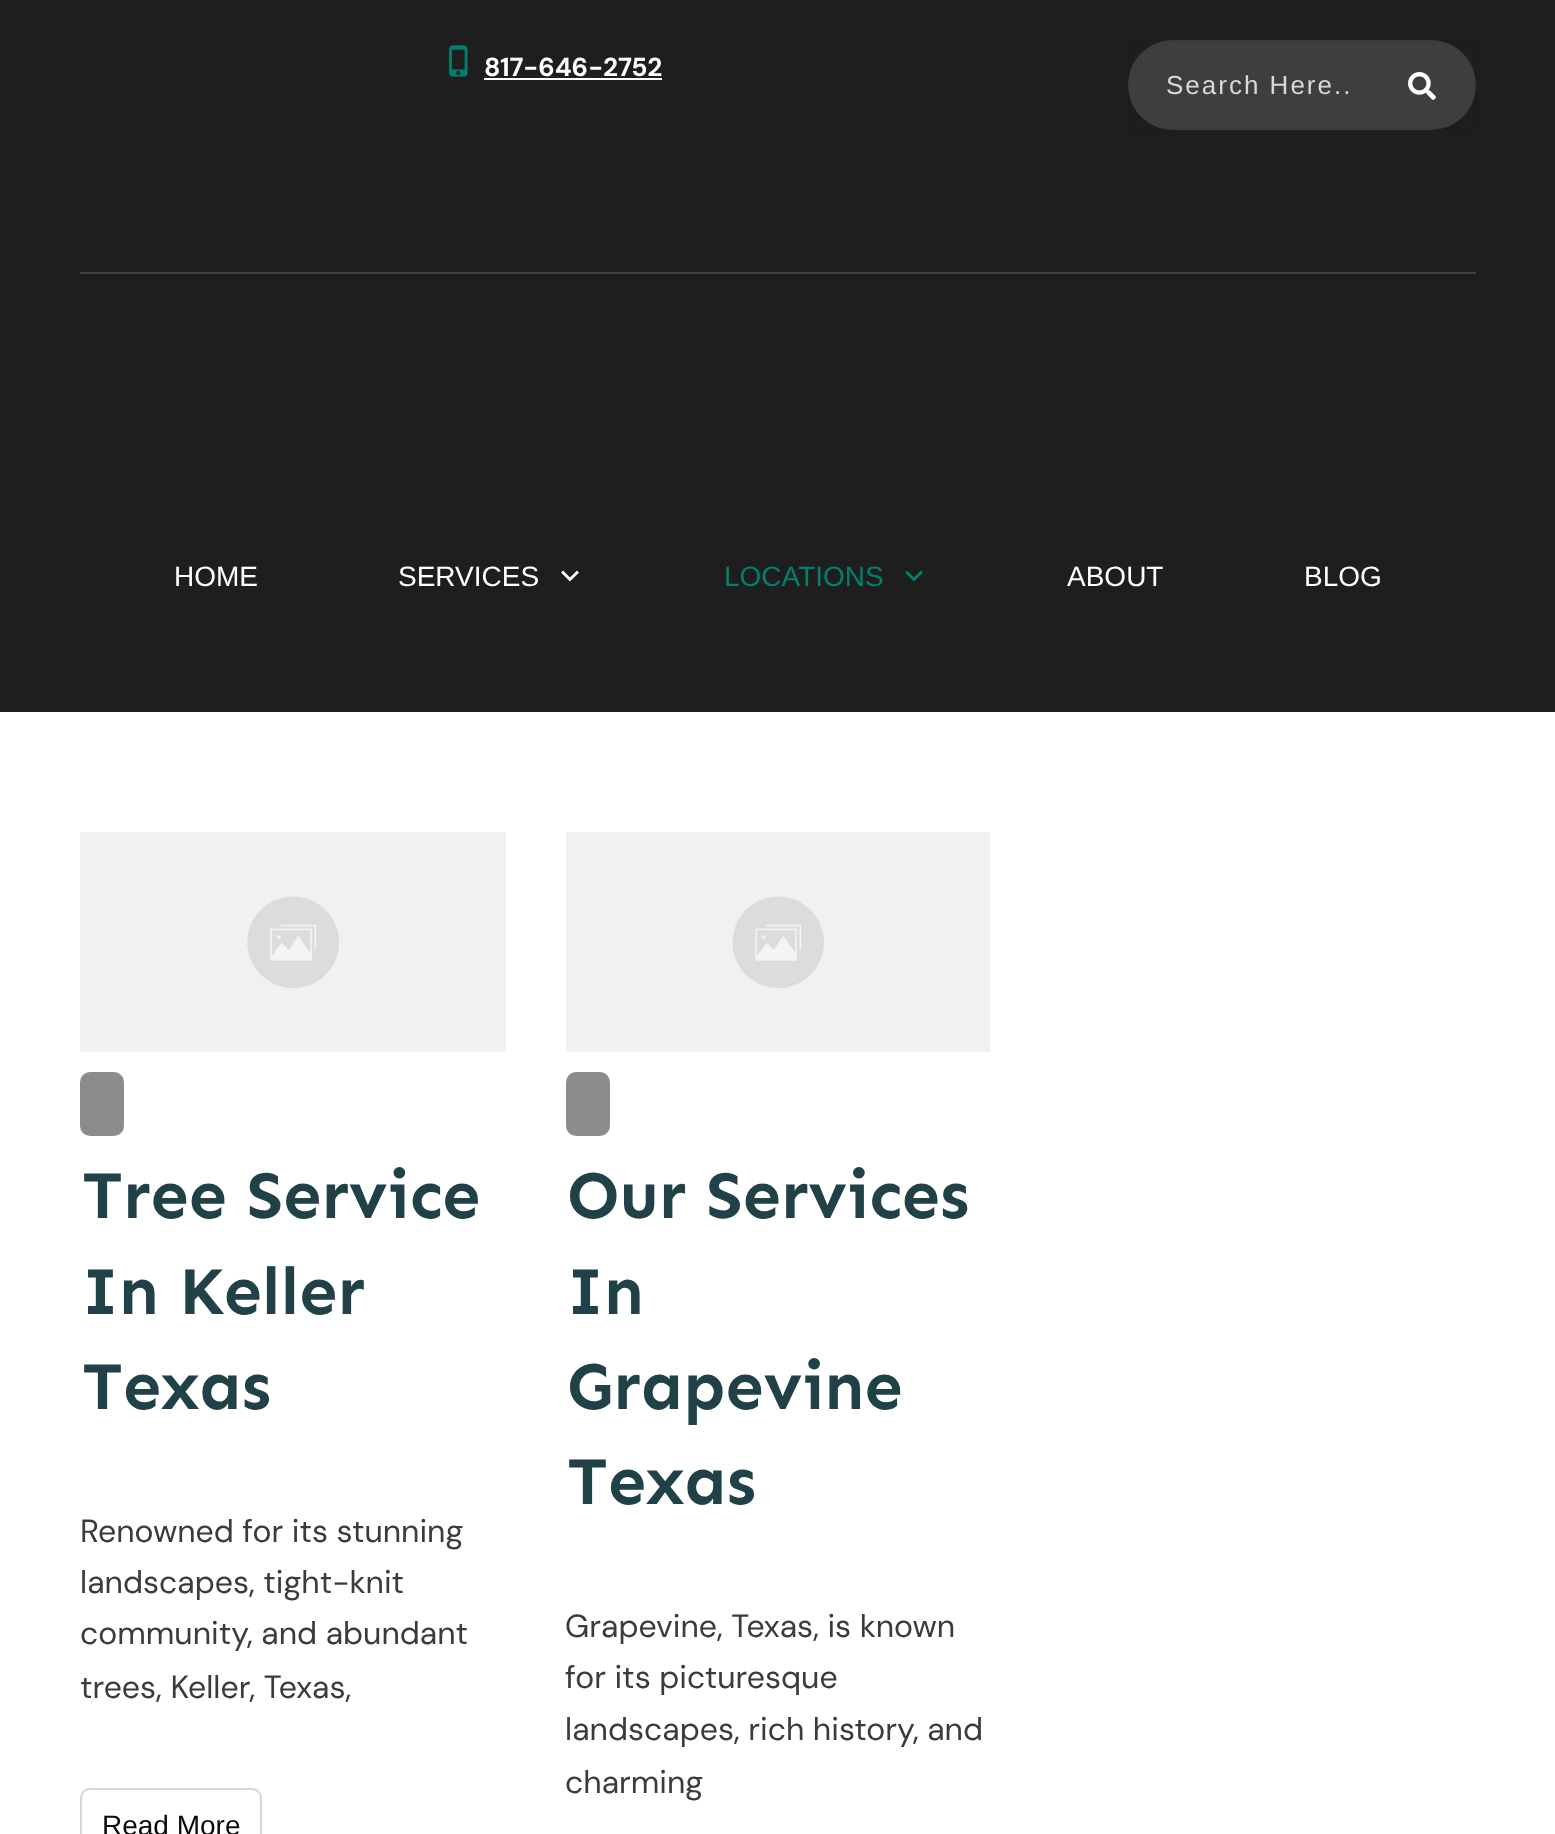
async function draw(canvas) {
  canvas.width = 1555
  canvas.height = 1834
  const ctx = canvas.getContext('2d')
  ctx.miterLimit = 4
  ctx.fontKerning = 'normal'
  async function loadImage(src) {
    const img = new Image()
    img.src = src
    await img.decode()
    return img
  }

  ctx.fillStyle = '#fff'
  ctx.fillRect(0, 0, 1555, 1834)
  ctx.fillStyle = '#1e1e1e'
  ctx.fillRect(0, 0, 1555, 712)
  ctx.fillStyle = '#404040'
  ctx.fillRect(80, 272, 1396, 2)
  ctx.drawImage(await loadImage('image0.png'), 449, 45, 19, 32)
  ctx.font = 'bold 26px DM Sans'
  ctx.fillStyle = '#fff'
  ctx.fillText('817-646-2752', 484, 76)
  ctx.fillRect(484, 78, 178, 2)
  ctx.fillStyle = '#3e3e3e'
  ctx.beginPath()
  ctx.roundRect(1128, 40, 348, 90, 45)
  ctx.fill()
  ctx.strokeStyle = '#0000000f'
  ctx.lineWidth = 2
  ctx.strokeRect(1129, 41, 346, 88)
  ctx.letterSpacing = '2px'
  ctx.font = '26px Liberation Sans'
  ctx.fillStyle = '#d8d8d8'
  ctx.fillText('Search Here..', 1166, 94)
  ctx.drawImage(await loadImage('image1.png'), 1408, 72, 28, 28)
  ctx.letterSpacing = '0px'
  ctx.font = '28px Liberation Sans'
  ctx.fillStyle = '#fff'
  ctx.fillText('HOME', 174, 586)
  ctx.fillText('SERVICES', 398, 586)
  ctx.drawImage(await loadImage('image2.png'), 561, 570, 18, 12)
  ctx.fillStyle = '#00806f'
  ctx.fillText('LOCATIONS', 724, 586)
  ctx.drawImage(await loadImage('image3.png'), 905, 570, 18, 12)
  ctx.fillStyle = '#fff'
  ctx.fillText('ABOUT', 1067, 586)
  ctx.fillText('BLOG', 1304, 586)
  ctx.drawImage(await loadImage('image4.png'), 80, 832, 426, 220)
  ctx.fillStyle = '#8c8c8c'
  ctx.beginPath()
  ctx.roundRect(80, 1072, 44, 64, 10)
  ctx.fill()
  ctx.font = 'bold 68px Sen'
  ctx.fillStyle = '#204147'
  ctx.fillText('Tree Service', 82, 1218)
  ctx.fillText('In Keller', 82, 1314)
  ctx.fillText('Texas', 82, 1409)
  ctx.font = '32px DM Sans'
  ctx.fillStyle = '#3b3b3b'
  ctx.fillText('Renowned for its stunning', 80, 1542)
  ctx.fillText('landscapes, tight-knit', 80, 1593)
  ctx.fillText('community, and abundant', 80, 1644)
  ctx.fillText('trees, Keller, Texas,', 80, 1698)
  ctx.beginPath()
  ctx.roundRect(81, 1789, 180, 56, 9)
  ctx.strokeStyle = '#d7d7d7'
  ctx.stroke()
  ctx.font = '28px Liberation Sans'
  ctx.fillStyle = '#0a0a0a'
  ctx.fillText('Read More', 102, 1835)
  ctx.drawImage(await loadImage('image5.png'), 566, 832, 424, 220)
  ctx.fillStyle = '#8c8c8c'
  ctx.beginPath()
  ctx.roundRect(566, 1072, 44, 64, 10)
  ctx.fill()
  ctx.font = 'bold 68px Sen'
  ctx.fillStyle = '#204147'
  ctx.fillText('Our Services', 567, 1218)
  ctx.fillText('In', 567, 1314)
  ctx.fillText('Grapevine', 567, 1409)
  ctx.fillText('Texas', 567, 1504)
  ctx.font = '32px DM Sans'
  ctx.fillStyle = '#3b3b3b'
  ctx.fillText('Grapevine, Texas, is known', 565, 1637)
  ctx.fillText('for its picturesque', 565, 1688)
  ctx.fillText('landscapes, rich history, and', 565, 1740)
  ctx.fillText('charming', 565, 1793)
}

draw(document.querySelector('canvas'))
